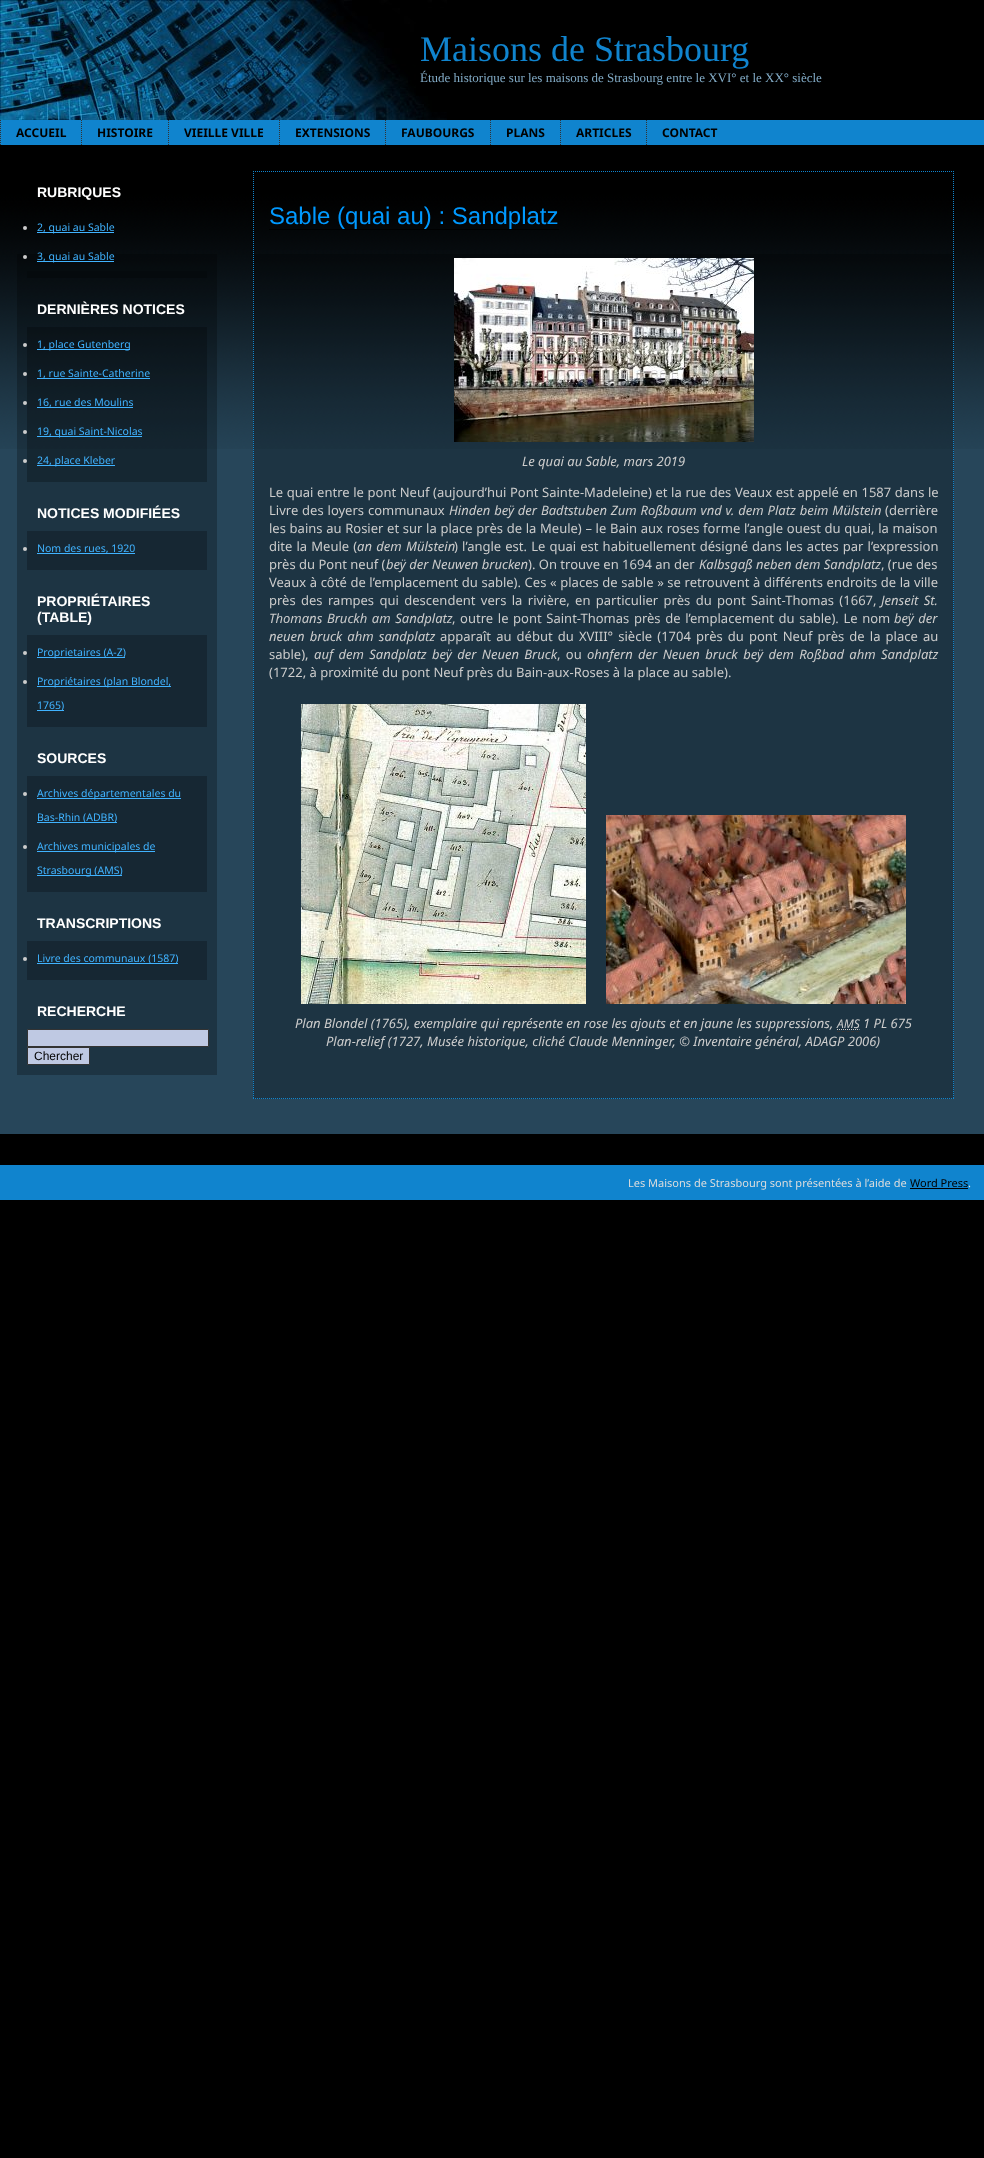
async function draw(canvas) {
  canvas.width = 984
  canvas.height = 2158
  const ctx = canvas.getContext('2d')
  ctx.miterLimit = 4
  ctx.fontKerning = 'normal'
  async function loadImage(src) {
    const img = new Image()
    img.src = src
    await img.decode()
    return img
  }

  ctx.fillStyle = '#000'
  ctx.fillRect(0, 0, 984, 2158)
  ctx.drawImage(await loadImage('image0.png'), 0, 0, 447, 120)
  ctx.font = '36px Liberation Serif'
  ctx.fillStyle = '#1084ce'
  ctx.fillText('Maisons de Strasbourg', 420, 61)
  ctx.font = '13px Liberation Serif'
  ctx.fillStyle = '#82abc6'
  ctx.fillText('Étude historique sur les maisons de Strasbourg entre le XVI° et le XX° siècle', 420, 82)
  ctx.fillStyle = '#1084ce'
  ctx.fillRect(0, 120, 984, 25)
  ctx.beginPath()
  ctx.moveTo(0.5, 120)
  ctx.lineTo(0.5, 145)
  ctx.strokeStyle = '#333'
  ctx.setLineDash([1, 1])
  ctx.stroke()
  ctx.font = 'bold 12px Noto Sans'
  ctx.fillStyle = '#000'
  ctx.fillText('ACCUEIL', 16, 137)
  ctx.beginPath()
  ctx.moveTo(81.5, 120)
  ctx.lineTo(81.5, 145)
  ctx.stroke()
  ctx.fillText('HISTOIRE', 97, 137)
  ctx.beginPath()
  ctx.moveTo(168.5, 120)
  ctx.lineTo(168.5, 145)
  ctx.stroke()
  ctx.fillText('VIEILLE VILLE', 184, 137)
  ctx.beginPath()
  ctx.moveTo(279.5, 120)
  ctx.lineTo(279.5, 145)
  ctx.stroke()
  ctx.fillText('EXTENSIONS', 295, 137)
  ctx.beginPath()
  ctx.moveTo(385.5, 120)
  ctx.lineTo(385.5, 145)
  ctx.stroke()
  ctx.fillText('FAUBOURGS', 401, 137)
  ctx.beginPath()
  ctx.moveTo(490.5, 120)
  ctx.lineTo(490.5, 145)
  ctx.stroke()
  ctx.fillText('PLANS', 506, 137)
  ctx.beginPath()
  ctx.moveTo(560.5, 120)
  ctx.lineTo(560.5, 145)
  ctx.stroke()
  ctx.fillText('ARTICLES', 576, 137)
  ctx.beginPath()
  ctx.moveTo(646.5, 120)
  ctx.lineTo(646.5, 145)
  ctx.stroke()
  ctx.fillText('CONTACT', 662, 137)
  ctx.fillStyle = '#27465a'
  ctx.fillRect(0, 449, 984, 685)
  ctx.drawImage(await loadImage('image1.png'), 0, 145, 984, 304)
  ctx.fillStyle = '#00000040'
  ctx.fillRect(17, 254, 200, 821)
  ctx.font = 'bold 14px Liberation Sans'
  ctx.fillStyle = '#fff'
  ctx.fillText('RUBRIQUES', 37, 197)
  ctx.fillStyle = '#050a0d'
  ctx.fillRect(27, 271, 180, 7)
  ctx.fillStyle = '#ccc'
  ctx.beginPath()
  ctx.arc(25, 228, 2, 0, 2 * Math.PI)
  ctx.fill()
  ctx.fillStyle = '#40b3ff'
  ctx.fillRect(37, 232, 77, 1)
  ctx.font = '10.5px Noto Sans'
  ctx.fillText('2, quai au Sable', 37, 231)
  ctx.fillStyle = '#ccc'
  ctx.beginPath()
  ctx.arc(25, 257, 2, 0, 2 * Math.PI)
  ctx.fill()
  ctx.fillStyle = '#40b3ff'
  ctx.fillRect(37, 261, 77, 1)
  ctx.fillText('3, quai au Sable', 37, 260)
  ctx.font = 'bold 14px Liberation Sans'
  ctx.fillStyle = '#fff'
  ctx.fillText('DERNIÈRES NOTICES', 37, 314)
  ctx.fillStyle = '#00000040'
  ctx.fillRect(27, 327, 180, 155)
  ctx.fillStyle = '#ccc'
  ctx.beginPath()
  ctx.arc(25, 345, 2, 0, 2 * Math.PI)
  ctx.fill()
  ctx.fillStyle = '#40b3ff'
  ctx.fillRect(37, 349, 93, 1)
  ctx.font = '10.5px Noto Sans'
  ctx.fillText('1, place Gutenberg', 37, 348)
  ctx.fillStyle = '#ccc'
  ctx.beginPath()
  ctx.arc(25, 374, 2, 0, 2 * Math.PI)
  ctx.fill()
  ctx.fillStyle = '#40b3ff'
  ctx.fillRect(37, 378, 113, 1)
  ctx.fillText('1, rue Sainte-Catherine', 37, 377)
  ctx.fillStyle = '#ccc'
  ctx.beginPath()
  ctx.arc(25, 403, 2, 0, 2 * Math.PI)
  ctx.fill()
  ctx.fillStyle = '#40b3ff'
  ctx.fillRect(37, 407, 96, 1)
  ctx.fillText('16, rue des Moulins', 37, 406)
  ctx.fillStyle = '#ccc'
  ctx.beginPath()
  ctx.arc(25, 432, 2, 0, 2 * Math.PI)
  ctx.fill()
  ctx.fillStyle = '#40b3ff'
  ctx.fillRect(37, 436, 105, 1)
  ctx.fillText('19, quai Saint-Nicolas', 37, 435)
  ctx.fillStyle = '#ccc'
  ctx.beginPath()
  ctx.arc(25, 461, 2, 0, 2 * Math.PI)
  ctx.fill()
  ctx.fillStyle = '#40b3ff'
  ctx.fillRect(37, 465, 78, 1)
  ctx.fillText('24, place Kleber', 37, 464)
  ctx.font = 'bold 14px Liberation Sans'
  ctx.fillStyle = '#fff'
  ctx.fillText('NOTICES MODIFIÉES', 37, 518)
  ctx.fillStyle = '#162733'
  ctx.fillRect(27, 531, 180, 39)
  ctx.fillStyle = '#ccc'
  ctx.beginPath()
  ctx.arc(25, 549, 2, 0, 2 * Math.PI)
  ctx.fill()
  ctx.fillStyle = '#40b3ff'
  ctx.fillRect(37, 553, 98, 1)
  ctx.font = '10.5px Noto Sans'
  ctx.fillText('Nom des rues, 1920', 37, 552)
  ctx.font = 'bold 14px Liberation Sans'
  ctx.fillStyle = '#fff'
  ctx.fillText('PROPRIÉTAIRES', 37, 606)
  ctx.fillText('(TABLE)', 37, 622)
  ctx.fillStyle = '#162733'
  ctx.fillRect(27, 635, 180, 92)
  ctx.fillStyle = '#ccc'
  ctx.beginPath()
  ctx.arc(25, 653, 2, 0, 2 * Math.PI)
  ctx.fill()
  ctx.fillStyle = '#40b3ff'
  ctx.fillRect(37, 657, 88, 1)
  ctx.font = '10.5px Noto Sans'
  ctx.fillText('Proprietaires (A-Z)', 37, 656)
  ctx.fillStyle = '#ccc'
  ctx.beginPath()
  ctx.arc(25, 682, 2, 0, 2 * Math.PI)
  ctx.fill()
  ctx.fillStyle = '#40b3ff'
  ctx.fillRect(37, 686, 134, 1)
  ctx.fillText('Propriétaires (plan Blondel,', 37, 685)
  ctx.fillRect(37, 710, 27, 1)
  ctx.fillText('1765)', 37, 709)
  ctx.font = 'bold 14px Liberation Sans'
  ctx.fillStyle = '#fff'
  ctx.fillText('SOURCES', 37, 763)
  ctx.fillStyle = '#162733'
  ctx.fillRect(27, 776, 180, 116)
  ctx.fillStyle = '#ccc'
  ctx.beginPath()
  ctx.arc(25, 794, 2, 0, 2 * Math.PI)
  ctx.fill()
  ctx.fillStyle = '#40b3ff'
  ctx.fillRect(37, 798, 144, 1)
  ctx.font = '10.5px Noto Sans'
  ctx.fillText('Archives départementales du', 37, 797)
  ctx.fillRect(37, 822, 80, 1)
  ctx.fillText('Bas-Rhin (ADBR)', 37, 821)
  ctx.fillStyle = '#ccc'
  ctx.beginPath()
  ctx.arc(25, 847, 2, 0, 2 * Math.PI)
  ctx.fill()
  ctx.fillStyle = '#40b3ff'
  ctx.fillRect(37, 851, 118, 1)
  ctx.fillText('Archives municipales de', 37, 850)
  ctx.fillRect(37, 875, 85, 1)
  ctx.fillText('Strasbourg (AMS)', 37, 874)
  ctx.font = 'bold 14px Liberation Sans'
  ctx.fillStyle = '#fff'
  ctx.fillText('TRANSCRIPTIONS', 37, 928)
  ctx.fillStyle = '#162733'
  ctx.fillRect(27, 941, 180, 39)
  ctx.fillStyle = '#ccc'
  ctx.beginPath()
  ctx.arc(25, 959, 2, 0, 2 * Math.PI)
  ctx.fill()
  ctx.fillStyle = '#40b3ff'
  ctx.fillRect(37, 963, 141, 1)
  ctx.font = '10.5px Noto Sans'
  ctx.fillText('Livre des communaux (1587)', 37, 962)
  ctx.font = 'bold 14px Liberation Sans'
  ctx.fillStyle = '#fff'
  ctx.fillText('RECHERCHE', 37, 1016)
  ctx.fillStyle = '#bfc9e3'
  ctx.beginPath()
  ctx.rect(27.5, 1029.5, 181, 17)
  ctx.fill()
  ctx.setLineDash([])
  ctx.stroke()
  ctx.beginPath()
  ctx.rect(27.5, 1047.5, 62, 17)
  ctx.fill()
  ctx.stroke()
  ctx.font = '12px Liberation Sans'
  ctx.fillStyle = '#000'
  ctx.fillText('Chercher', 34, 1060)
  ctx.fillStyle = '#00000040'
  ctx.fillRect(253, 254, 701, 845)
  ctx.beginPath()
  ctx.moveTo(253, 171.5)
  ctx.lineTo(954, 171.5)
  ctx.strokeStyle = '#1084ce'
  ctx.setLineDash([1, 1])
  ctx.stroke()
  ctx.beginPath()
  ctx.moveTo(953.5, 171)
  ctx.lineTo(953.5, 1099)
  ctx.stroke()
  ctx.beginPath()
  ctx.moveTo(253, 1098.5)
  ctx.lineTo(954, 1098.5)
  ctx.stroke()
  ctx.beginPath()
  ctx.moveTo(253.5, 171)
  ctx.lineTo(253.5, 1099)
  ctx.stroke()
  ctx.font = '24px Liberation Sans'
  ctx.fillStyle = '#09f'
  ctx.fillText('Sable (quai au) : Sandplatz', 269, 224)
  ctx.fillStyle = '#000'
  ctx.fillRect(269, 229, 290, 1)
  ctx.drawImage(await loadImage('image2.png'), 454, 258, 300, 184)
  ctx.font = 'italic 13px Noto Sans'
  ctx.fillStyle = '#ccc'
  ctx.fillText('Le quai au Sable, mars 2019', 522, 466)
  ctx.wordSpacing = '0.25px'
  ctx.font = '13px Noto Sans'
  ctx.fillText('Le quai entre le pont Neuf (aujourd’hui Pont Sainte-Madeleine) et la rue des Veaux est appelé en 1587 dans le', 269, 497)
  ctx.wordSpacing = '0.5px'
  ctx.fillText('Livre des loyers communaux', 269, 515)
  ctx.font = 'italic 13px Noto Sans'
  ctx.fillText('Hinden beÿ der Badtstuben Zum Roßbaum vnd v. dem Platz beim Mülstein', 449, 515)
  ctx.wordSpacing = '0px'
  ctx.font = '13px Noto Sans'
  ctx.fillText('(derrière', 885, 515)
  ctx.wordSpacing = '0.3px'
  ctx.fillText('les bains au Rosier et sur la place près de la Meule) – le Bain aux roses forme l’angle ouest du quai, la maison', 269, 533)
  ctx.wordSpacing = '0.75px'
  ctx.fillText('dite la Meule (', 269, 551)
  ctx.wordSpacing = '1px'
  ctx.font = 'italic 13px Noto Sans'
  ctx.fillText('an dem Mülstein', 357, 551)
  ctx.wordSpacing = '0.75px'
  ctx.font = '13px Noto Sans'
  ctx.fillText(') l’angle est. Le quai est habituellement désigné dans les actes par l’expression', 454, 551)
  ctx.wordSpacing = '0px'
  ctx.fillText('près du Pont neuf (', 269, 569)
  ctx.font = 'italic 13px Noto Sans'
  ctx.fillText('beÿ der Neuwen brucken', 386, 569)
  ctx.font = '13px Noto Sans'
  ctx.fillText('). On trouve en 1694 an der', 528, 569)
  ctx.font = 'italic 13px Noto Sans'
  ctx.fillText('Kalbsgaß neben dem Sandplatz', 699, 569)
  ctx.font = '13px Noto Sans'
  ctx.fillText(', (rue des', 881, 569)
  ctx.wordSpacing = '0.25px'
  ctx.fillText('Veaux à côté de l’emplacement du sable). Ces « places de sable » se retrouvent à différents endroits de la ville', 269, 587)
  ctx.wordSpacing = '2px'
  ctx.fillText('près des rampes qui descendent vers la rivière, en particulier près du pont Saint-Thomas (1667,', 269, 605)
  ctx.font = 'italic 13px Noto Sans'
  ctx.fillText('Jenseit St.', 881, 605)
  ctx.wordSpacing = '1.25px'
  ctx.fillText('Thomans Bruckh am Sandplatz', 269, 623)
  ctx.font = '13px Noto Sans'
  ctx.fillText(', outre le pont Saint-Thomas près de l’emplacement du sable). Le nom', 452, 623)
  ctx.wordSpacing = '1px'
  ctx.font = 'italic 13px Noto Sans'
  ctx.fillText('beÿ der', 894, 623)
  ctx.wordSpacing = '1.75px'
  ctx.fillText('neuen bruck ahm sandplatz', 269, 641)
  ctx.font = '13px Noto Sans'
  ctx.fillText('apparaît au début du XVIII° siècle (1704 près du pont Neuf près de la place au', 440, 641)
  ctx.wordSpacing = '0px'
  ctx.fillText('sable),', 269, 659)
  ctx.wordSpacing = '2px'
  ctx.font = 'italic 13px Noto Sans'
  ctx.fillText('auf dem Sandplatz beÿ der Neuen Bruck', 314, 659)
  ctx.font = '13px Noto Sans'
  ctx.fillText(', ou', 557, 659)
  ctx.font = 'italic 13px Noto Sans'
  ctx.fillText('ohnfern der Neuen bruck beÿ dem Roßbad ahm Sandplatz', 587, 659)
  ctx.wordSpacing = '0px'
  ctx.font = '13px Noto Sans'
  ctx.fillText('(1722, à proximité du pont Neuf près du Bain-aux-Roses à la place au sable).', 269, 677)
  ctx.drawImage(await loadImage('image3.png'), 301, 704, 285, 300)
  ctx.drawImage(await loadImage('image4.png'), 606, 815, 300, 189)
  ctx.font = 'italic 13px Noto Sans'
  ctx.fillText('Plan Blondel (1765), exemplaire qui représente en rose les ajouts et en jaune les suppressions,', 295, 1028)
  ctx.font = 'italic 12px Noto Sans'
  ctx.fillText('AMS', 837, 1028)
  ctx.beginPath()
  ctx.moveTo(837, 1031.5)
  ctx.lineTo(859, 1031.5)
  ctx.strokeStyle = '#333'
  ctx.setLineDash([3, 1.75])
  ctx.stroke()
  ctx.beginPath()
  ctx.moveTo(837, 1029.5)
  ctx.lineTo(859.5, 1029.5)
  ctx.strokeStyle = '#ccc'
  ctx.setLineDash([1, 1])
  ctx.stroke()
  ctx.font = 'italic 13px Noto Sans'
  ctx.fillText('1 PL 675', 863, 1028)
  ctx.fillText('Plan-relief (1727, Musée historique, cliché Claude Menninger, © Inventaire général, ADAGP 2006)', 326, 1046)
  ctx.fillStyle = '#1084ce'
  ctx.fillRect(0, 1165, 984, 35)
  ctx.font = '11px Noto Sans'
  ctx.fillStyle = '#ddd'
  ctx.fillText('Les Maisons de Strasbourg sont présentées à l’aide de', 628, 1187)
  ctx.fillStyle = '#000'
  ctx.fillText('Word Press', 910, 1187)
  ctx.fillRect(910, 1188, 58, 1)
  ctx.fillStyle = '#ddd'
  ctx.fillText('.', 968, 1187)
}

draw(document.querySelector('canvas'))
